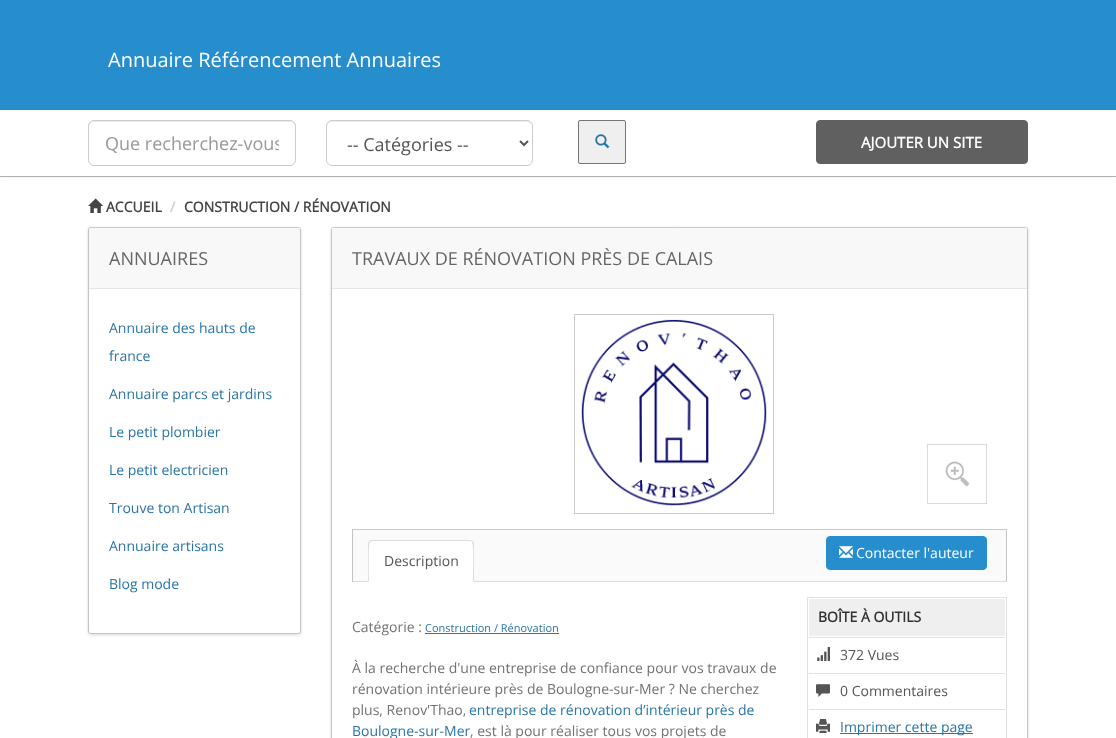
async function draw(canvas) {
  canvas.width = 1116
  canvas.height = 738
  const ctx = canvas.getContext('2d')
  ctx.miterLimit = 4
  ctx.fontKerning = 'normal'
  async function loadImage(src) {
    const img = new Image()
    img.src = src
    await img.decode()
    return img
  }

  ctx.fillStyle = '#fff'
  ctx.fillRect(0, 0, 1116, 738)
  ctx.fillStyle = '#278ece'
  ctx.fillRect(0, 0, 1116, 110)
  ctx.font = '20px Open Sans'
  ctx.fillStyle = '#fff'
  ctx.fillText('Annuaire Référencement Annuaires', 108, 67)
  ctx.fillStyle = '#00000014'
  ctx.filter = 'blur(1.5px)'
  ctx.beginPath()
  ctx.rect(0, 110, 1116, 67)
  ctx.fill()
  ctx.filter = 'none'
  ctx.fillStyle = '#fff'
  ctx.fillRect(0, 110, 1116, 66)
  ctx.fillStyle = '#b2b2b2'
  ctx.fillRect(0, 176, 1116, 1)
  ctx.fillStyle = '#ececec'
  ctx.beginPath()
  ctx.moveTo(94, 122)
  ctx.lineTo(290, 122)
  ctx.bezierCurveTo(293, 122, 295, 124, 295, 127)
  ctx.lineTo(295, 126)
  ctx.bezierCurveTo(295, 123, 293, 121, 290, 121)
  ctx.lineTo(94, 121)
  ctx.bezierCurveTo(91, 121, 89, 123, 89, 126)
  ctx.lineTo(89, 127)
  ctx.bezierCurveTo(89, 124, 91, 122, 94, 122)
  ctx.closePath()
  ctx.fill()
  ctx.beginPath()
  ctx.roundRect(88.5, 120.5, 207, 45, 5.5)
  ctx.strokeStyle = '#ccc'
  ctx.stroke()
  ctx.save()
  ctx.beginPath()
  ctx.rect(105, 131, 174, 24)
  ctx.clip()
  ctx.font = '18px Open Sans'
  ctx.fillStyle = '#999'
  ctx.fillText('Que recherchez-vous', 105, 150)
  ctx.restore()
  ctx.beginPath()
  ctx.moveTo(332, 122)
  ctx.lineTo(527, 122)
  ctx.bezierCurveTo(530, 122, 532, 124, 532, 127)
  ctx.lineTo(532, 126)
  ctx.bezierCurveTo(532, 123, 530, 121, 527, 121)
  ctx.lineTo(332, 121)
  ctx.bezierCurveTo(329, 121, 327, 123, 327, 126)
  ctx.lineTo(327, 127)
  ctx.bezierCurveTo(327, 124, 329, 122, 332, 122)
  ctx.closePath()
  ctx.fill()
  ctx.beginPath()
  ctx.roundRect(326.5, 120.5, 206, 45, 5.5)
  ctx.stroke()
  ctx.beginPath()
  ctx.moveTo(520, 141)
  ctx.lineTo(524, 145)
  ctx.lineTo(528, 141)
  ctx.strokeStyle = '#555'
  ctx.lineWidth = 2
  ctx.stroke()
  ctx.font = '18px Open Sans'
  ctx.fillStyle = '#555'
  ctx.fillText('-- Catégories --', 347, 151)
  ctx.fillStyle = '#efefef'
  ctx.beginPath()
  ctx.roundRect(578.5, 120.5, 47, 43, 1.5)
  ctx.fill()
  ctx.strokeStyle = '#767676'
  ctx.lineWidth = 1
  ctx.stroke()
  ctx.drawImage(await loadImage('image0.png'), 595, 134, 15, 15)
  ctx.fillStyle = '#606060'
  ctx.beginPath()
  ctx.roundRect(816.5, 120.5, 211, 43, 3.5)
  ctx.fill()
  ctx.strokeStyle = '#606060'
  ctx.stroke()
  ctx.font = 'bold 15px Open Sans'
  ctx.fillStyle = '#fff'
  ctx.fillText('AJOUTER UN SITE', 861, 148)
  ctx.drawImage(await loadImage('image1.png'), 88, 198, 15, 15)
  ctx.font = 'bold 14px Open Sans'
  ctx.fillStyle = '#444'
  ctx.fillText('ACCUEIL', 106, 212)
  ctx.fillStyle = '#ccc'
  ctx.fillText('/', 170, 212)
  ctx.fillStyle = '#444'
  ctx.fillText('CONSTRUCTION / RÉNOVATION', 184, 212)
  ctx.fillStyle = '#00000026'
  ctx.filter = 'blur(1.5px)'
  ctx.beginPath()
  ctx.roundRect(88, 228, 213, 407, 3)
  ctx.fill()
  ctx.filter = 'none'
  ctx.fillStyle = '#fff'
  ctx.beginPath()
  ctx.roundRect(88, 227, 213, 407, 3)
  ctx.fill()
  ctx.beginPath()
  ctx.moveTo(89, 228)
  ctx.lineTo(91, 227.5)
  ctx.lineTo(298, 227.5)
  ctx.lineTo(300, 228)
  ctx.strokeStyle = '#ccc'
  ctx.stroke()
  ctx.beginPath()
  ctx.moveTo(300, 228)
  ctx.lineTo(300.5, 230)
  ctx.lineTo(300.5, 631)
  ctx.lineTo(300, 633)
  ctx.strokeStyle = '#c4c4c4'
  ctx.stroke()
  ctx.beginPath()
  ctx.moveTo(300, 633)
  ctx.lineTo(298, 633.5)
  ctx.lineTo(91, 633.5)
  ctx.lineTo(89, 633)
  ctx.strokeStyle = '#c5c5c5'
  ctx.stroke()
  ctx.beginPath()
  ctx.moveTo(89, 633)
  ctx.lineTo(88.5, 631)
  ctx.lineTo(88.5, 230)
  ctx.lineTo(89, 228)
  ctx.strokeStyle = '#c4c4c4'
  ctx.stroke()
  ctx.fillStyle = '#f8f8f8'
  ctx.beginPath()
  ctx.roundRect(89, 228, 211, 61, [2, 2, 0, 0])
  ctx.fill()
  ctx.fillStyle = '#e6e6e6'
  ctx.fillRect(89, 288, 211, 1)
  ctx.font = '18px Open Sans'
  ctx.fillStyle = '#666'
  ctx.fillText('ANNUAIRES', 109, 265)
  ctx.font = '14px Open Sans'
  ctx.fillStyle = '#2875a6'
  ctx.fillText('Annuaire des hauts de', 109, 333)
  ctx.fillText('france', 109, 361)
  ctx.fillText('Annuaire parcs et jardins', 109, 399)
  ctx.fillText('Le petit plombier', 109, 437)
  ctx.fillText('Le petit electricien', 109, 475)
  ctx.fillText('Trouve ton Artisan', 109, 513)
  ctx.fillText('Annuaire artisans', 109, 551)
  ctx.fillText('Blog mode', 109, 589)
  ctx.fillStyle = '#00000026'
  ctx.filter = 'blur(1.5px)'
  ctx.beginPath()
  ctx.roundRect(331, 228, 697, 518, 3)
  ctx.fill()
  ctx.filter = 'none'
  ctx.fillStyle = '#fff'
  ctx.beginPath()
  ctx.roundRect(331, 227, 697, 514, 3)
  ctx.fill()
  ctx.beginPath()
  ctx.moveTo(332, 228)
  ctx.lineTo(334, 227.5)
  ctx.lineTo(1025, 227.5)
  ctx.lineTo(1027, 228)
  ctx.strokeStyle = '#ccc'
  ctx.stroke()
  ctx.beginPath()
  ctx.moveTo(1027, 228)
  ctx.lineTo(1027.5, 230)
  ctx.lineTo(1027.5, 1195)
  ctx.lineTo(1027, 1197)
  ctx.strokeStyle = '#c4c4c4'
  ctx.stroke()
  ctx.beginPath()
  ctx.moveTo(332, 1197)
  ctx.lineTo(331.5, 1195)
  ctx.lineTo(331.5, 230)
  ctx.lineTo(332, 228)
  ctx.stroke()
  ctx.fillStyle = '#f8f8f8'
  ctx.fillRect(332, 228, 695, 60)
  ctx.fillStyle = '#e6e6e6'
  ctx.fillRect(332, 288, 695, 1)
  ctx.font = '18px Open Sans'
  ctx.fillStyle = '#666'
  ctx.fillText('TRAVAUX DE RÉNOVATION PRÈS DE CALAIS', 352, 265)
  ctx.strokeStyle = '#ccc'
  ctx.strokeRect(574.5, 314.5, 199, 199)
  ctx.drawImage(await loadImage('image2.png'), 581, 319, 186, 187)
  ctx.drawImage(await loadImage('image3.png'), 927, 444, 60, 60)
  ctx.fillStyle = '#fafafa'
  ctx.fillRect(353, 530, 653, 51)
  ctx.fillStyle = '#278ece'
  ctx.beginPath()
  ctx.roundRect(826.5, 536.5, 160, 33, 3.5)
  ctx.fill()
  ctx.strokeStyle = '#278ece'
  ctx.stroke()
  ctx.drawImage(await loadImage('image4.png'), 839, 546, 14, 12)
  ctx.font = '14px Open Sans'
  ctx.fillStyle = '#fff'
  ctx.fillText('Contacter l\'auteur', 856, 558)
  ctx.fillStyle = '#ccc'
  ctx.fillRect(352, 529, 655, 1)
  ctx.fillStyle = '#c4c4c4'
  ctx.fillRect(1006, 529, 1, 53)
  ctx.fillStyle = '#ddd'
  ctx.fillRect(352, 581, 655, 1)
  ctx.fillStyle = '#c4c4c4'
  ctx.fillRect(352, 529, 1, 53)
  ctx.fillStyle = '#fff'
  ctx.beginPath()
  ctx.roundRect(368, 540, 106, 42, [4, 4, 0, 0])
  ctx.fill()
  ctx.fillStyle = '#ddd'
  ctx.beginPath()
  ctx.moveTo(372, 540)
  ctx.lineTo(369, 541)
  ctx.lineTo(370, 542)
  ctx.lineTo(372, 541)
  ctx.lineTo(470, 541)
  ctx.lineTo(472, 542)
  ctx.lineTo(473, 541)
  ctx.lineTo(470, 540)
  ctx.closePath()
  ctx.fill()
  ctx.beginPath()
  ctx.moveTo(474, 582)
  ctx.lineTo(474, 544)
  ctx.bezierCurveTo(474, 543, 474, 542, 473, 541)
  ctx.lineTo(472, 542)
  ctx.bezierCurveTo(474, 544, 473, 576, 473, 581)
  ctx.closePath()
  ctx.fill()
  ctx.beginPath()
  ctx.moveTo(368, 582)
  ctx.lineTo(369, 581)
  ctx.bezierCurveTo(369, 576, 368, 544, 370, 542)
  ctx.lineTo(369, 541)
  ctx.lineTo(368, 544)
  ctx.closePath()
  ctx.fill()
  ctx.fillStyle = '#555'
  ctx.fillText('Description', 384, 566)
  ctx.fillStyle = '#727272'
  ctx.fillText('Catégorie :', 352, 632)
  ctx.font = '11px Open Sans'
  ctx.fillStyle = '#2875a6'
  ctx.fillText('Construction / Rénovation', 425, 632)
  ctx.fillRect(425, 633, 134, 1)
  ctx.strokeStyle = '#e1e1e1'
  ctx.strokeRect(807.5, 597.5, 199, 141)
  ctx.fillStyle = '#efefef'
  ctx.fillRect(809, 599, 196, 37)
  ctx.font = 'bold 14px Open Sans'
  ctx.fillStyle = '#323232'
  ctx.fillText('BOÎTE À OUTILS', 818, 622)
  ctx.fillStyle = '#e1e1e1'
  ctx.fillRect(809, 637, 196, 1)
  ctx.drawImage(await loadImage('image5.png'), 817, 647, 13, 14)
  ctx.font = '14px Open Sans'
  ctx.fillStyle = '#555'
  ctx.fillText('372 Vues', 840, 660)
  ctx.fillStyle = '#e1e1e1'
  ctx.fillRect(809, 673, 196, 1)
  ctx.drawImage(await loadImage('image6.png'), 816, 684, 14, 13)
  ctx.fillStyle = '#555'
  ctx.fillText('0 Commentaires', 840, 696)
  ctx.fillStyle = '#e1e1e1'
  ctx.fillRect(809, 709, 196, 1)
  ctx.drawImage(await loadImage('image7.png'), 816, 719, 14, 14)
  ctx.fillStyle = '#2875a6'
  ctx.fillRect(840, 733, 133, 1)
  ctx.fillText('Imprimer cette page', 840, 732)
  ctx.fillStyle = '#727272'
  ctx.fillText('À la recherche d\'une entreprise de confiance pour vos travaux de', 352, 673)
  ctx.fillText('rénovation intérieure près de Boulogne-sur-Mer ? Ne cherchez', 352, 694)
  ctx.fillText('plus, Renov\'Thao,', 352, 715)
  ctx.fillStyle = '#2875a6'
  ctx.fillText('entreprise de rénovation d’intérieur près de', 469, 715)
  ctx.fillText('Boulogne-sur-Mer', 352, 736)
  ctx.fillStyle = '#727272'
  ctx.fillText(', est là pour réaliser tous vos projets de', 470, 736)
}

draw(document.querySelector('canvas'))
